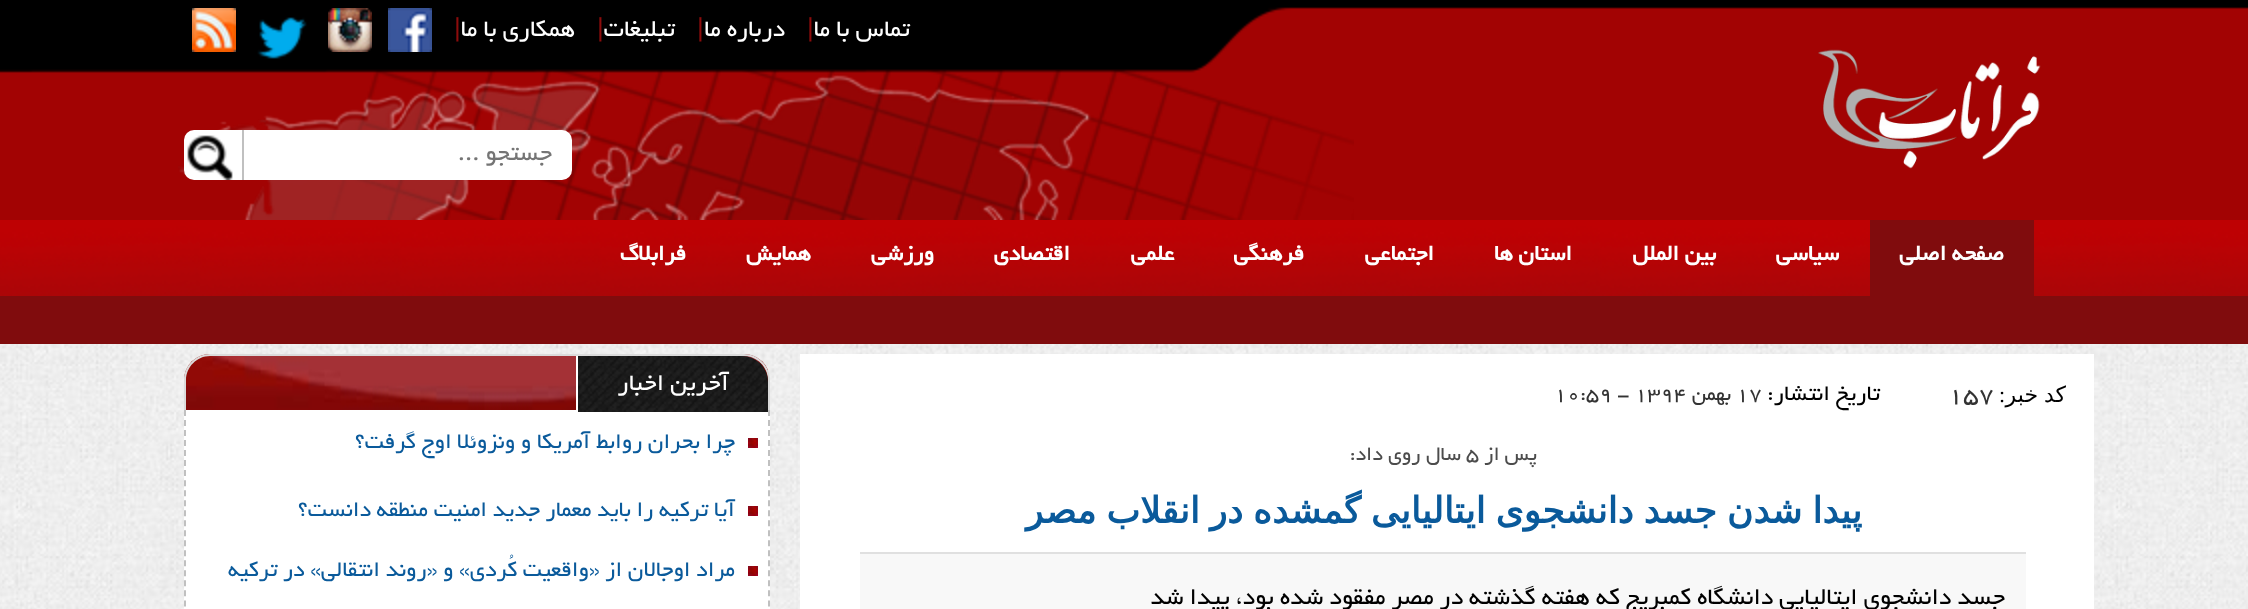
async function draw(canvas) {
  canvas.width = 2248
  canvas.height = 609
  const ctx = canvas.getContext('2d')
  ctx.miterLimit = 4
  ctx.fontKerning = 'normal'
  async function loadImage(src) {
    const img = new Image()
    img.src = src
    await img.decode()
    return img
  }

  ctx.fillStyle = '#fff'
  ctx.fillRect(0, 0, 2248, 609)
  ctx.drawImage(await loadImage('image0.png'), 0, 344, 2248, 265)
  ctx.drawImage(await loadImage('image1.png'), 0, 0, 2248, 220)
  ctx.drawImage(await loadImage('image2.png'), 178, 70, 1176, 150)
  ctx.drawImage(await loadImage('image3.png'), 1818, 49, 223, 120)
  ctx.direction = 'rtl'
  ctx.font = '26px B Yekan'
  ctx.fillText('تماس با ما', 910, 36)
  ctx.direction = 'ltr'
  ctx.font = '26px Liberation Sans'
  ctx.fillStyle = '#8c0c0c'
  ctx.fillText('|', 807, 36)
  ctx.direction = 'rtl'
  ctx.font = '26px B Yekan'
  ctx.fillStyle = '#fff'
  ctx.fillText('درباره ما', 785, 36)
  ctx.direction = 'ltr'
  ctx.font = '26px Liberation Sans'
  ctx.fillStyle = '#8c0c0c'
  ctx.fillText('|', 697, 36)
  ctx.direction = 'rtl'
  ctx.font = '26px B Yekan'
  ctx.fillStyle = '#fff'
  ctx.fillText('تبلیغات', 675, 36)
  ctx.direction = 'ltr'
  ctx.font = '26px Liberation Sans'
  ctx.fillStyle = '#8c0c0c'
  ctx.fillText('|', 597, 36)
  ctx.direction = 'rtl'
  ctx.font = '26px B Yekan'
  ctx.fillStyle = '#fff'
  ctx.fillText('همکاری با ما', 575, 36)
  ctx.direction = 'ltr'
  ctx.font = '26px Liberation Sans'
  ctx.fillStyle = '#8c0c0c'
  ctx.fillText('|', 454, 36)
  ctx.drawImage(await loadImage('image4.png'), 388, 8, 44, 44)
  ctx.drawImage(await loadImage('image5.png'), 328, 8, 44, 44)
  ctx.drawImage(await loadImage('image6.png'), 257, 17, 50, 42)
  ctx.drawImage(await loadImage('image7.png'), 192, 8, 44, 44)
  ctx.fillStyle = '#fff'
  ctx.beginPath()
  ctx.roundRect(244, 130, 328, 50, [0, 10, 10, 0])
  ctx.fill()
  ctx.direction = 'rtl'
  ctx.font = '26px B Yekan'
  ctx.fillStyle = '#757575'
  ctx.fillText('جستجو ...', 552, 160)
  ctx.fillStyle = '#fff'
  ctx.beginPath()
  ctx.roundRect(184, 130, 60, 50, [10, 0, 0, 10])
  ctx.fill()
  ctx.drawImage(await loadImage('image8.png'), 187, 135, 46, 45)
  ctx.fillStyle = '#c0c0c0'
  ctx.fillRect(242, 130, 2, 50)
  ctx.drawImage(await loadImage('image9.png'), 0, 220, 2248, 76)
  ctx.fillStyle = '#800c0d'
  ctx.fillRect(1870, 220, 164, 76)
  ctx.font = 'bold 24px B Yekan'
  ctx.fillStyle = '#fff'
  ctx.fillText('صفحه اصلی', 2004, 260)
  ctx.fillText('سیاسی', 1839, 260)
  ctx.fillText('بین الملل', 1716, 260)
  ctx.fillText('استان ها', 1572, 260)
  ctx.fillText('اجتماعی', 1434, 260)
  ctx.fillText('فرهنگی', 1304, 260)
  ctx.fillText('علمی', 1174, 260)
  ctx.fillText('اقتصادی', 1070, 260)
  ctx.fillText('ورزشی', 934, 260)
  ctx.fillText('همایش', 811, 260)
  ctx.fillText('فرابلاگ', 686, 260)
  ctx.fillStyle = '#800c0d'
  ctx.fillRect(0, 296, 2248, 48)
  ctx.fillStyle = '#fff'
  ctx.fillRect(800, 354, 1294, 255)
  ctx.wordSpacing = '-1px'
  ctx.font = '22px DejaVu Sans'
  ctx.fillStyle = '#000'
  ctx.fillText('کد خبر', 2066, 402)
  ctx.wordSpacing = '0px'
  ctx.font = '22px Liberation Serif'
  ctx.fillText(':', 2005, 402)
  ctx.direction = 'ltr'
  ctx.font = '26px B Yekan'
  ctx.fillStyle = '#333'
  ctx.fillText('157', 1948, 402)
  ctx.direction = 'rtl'
  ctx.font = '24px B Yekan'
  ctx.fillStyle = '#000'
  ctx.fillText('تاریخ انتشار:', 1880, 400)
  ctx.direction = 'ltr'
  ctx.font = '22px B Yekan'
  ctx.fillStyle = '#333'
  ctx.fillText('17', 1736, 400)
  ctx.direction = 'rtl'
  ctx.fillText('بهمن', 1731, 400)
  ctx.direction = 'ltr'
  ctx.fillText('10:59 - 1394', 1554, 400)
  ctx.direction = 'rtl'
  ctx.fillStyle = '#4c4c4c'
  ctx.fillText('پس از', 1537, 460)
  ctx.direction = 'ltr'
  ctx.fillText('5', 1466, 460)
  ctx.direction = 'rtl'
  ctx.fillText('سال روی داد:', 1461, 460)
  ctx.wordSpacing = '-1.5px'
  ctx.font = 'bold 36px DejaVu Sans'
  ctx.fillStyle = '#0a5a9b'
  ctx.fillText('پیدا شدن جسد دانشجوی ایتالیایی گمشده در انقلاب مصر', 1862, 523)
  ctx.fillStyle = '#f8f8f8'
  ctx.fillRect(860, 554, 1166, 55)
  ctx.fillStyle = '#e0e0e0'
  ctx.fillRect(860, 552, 1166, 2)
  ctx.wordSpacing = '0px'
  ctx.font = '26px B Yekan'
  ctx.fillStyle = '#000'
  ctx.fillText('جسد دانشجوی ایتالیایی دانشگاه کمبریج که هفته گذشته در مصر مفقود شده بود، پیدا شد', 2005, 604)
  ctx.drawImage(await loadImage('image10.png'), 184, 354, 584, 56)
  ctx.fillStyle = '#dbdbdb'
  ctx.beginPath()
  ctx.moveTo(210, 354)
  ctx.lineTo(744, 354)
  ctx.bezierCurveTo(758, 354, 770, 366, 770, 380)
  ctx.lineTo(770, 410)
  ctx.lineTo(184, 410)
  ctx.lineTo(184, 380)
  ctx.bezierCurveTo(184, 366, 196, 354, 210, 354)
  ctx.closePath()
  ctx.moveTo(210, 356)
  ctx.lineTo(744, 356)
  ctx.bezierCurveTo(757, 356, 768, 367, 768, 380)
  ctx.lineTo(768, 410)
  ctx.lineTo(186, 410)
  ctx.lineTo(186, 380)
  ctx.bezierCurveTo(186, 367, 197, 356, 210, 356)
  ctx.closePath()
  ctx.fill('evenodd')
  ctx.fillStyle = '#fff'
  ctx.fillRect(184, 410, 586, 199)
  ctx.fillStyle = '#111'
  ctx.beginPath()
  ctx.roundRect(576, 356, 192, 56, [0, 26, 0, 0])
  ctx.fill()
  ctx.drawImage(await loadImage('image11.png'), 578, 356, 190, 56)
  ctx.fillStyle = '#fff'
  ctx.fillRect(576, 356, 2, 56)
  ctx.fillText('آخرین اخبار', 729, 390)
  ctx.beginPath()
  ctx.moveTo(769, 410)
  ctx.lineTo(769, 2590)
  ctx.strokeStyle = '#c0c0c0'
  ctx.lineWidth = 2
  ctx.setLineDash([6, 4.02])
  ctx.stroke()
  ctx.beginPath()
  ctx.moveTo(185, 410)
  ctx.lineTo(185, 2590)
  ctx.stroke()
  ctx.drawImage(await loadImage('image12.png'), 748, 438, 10, 10)
  ctx.font = '24px B Yekan'
  ctx.fillStyle = '#0a5a9b'
  ctx.fillText('چرا بحران روابط آمریکا و ونزوئلا اوج گرفت؟', 735, 448)
  ctx.drawImage(await loadImage('image12.png'), 748, 506, 10, 10)
  ctx.fillText('آیا ترکیه را باید معمار جدید امنیت منطقه دانست؟', 735, 516)
  ctx.drawImage(await loadImage('image12.png'), 748, 566, 10, 10)
  ctx.fillText('مراد اوجالان از «واقعیت کُردی» و «روند انتقالی» در ترکیه', 735, 576)
}

draw(document.querySelector('canvas'))
